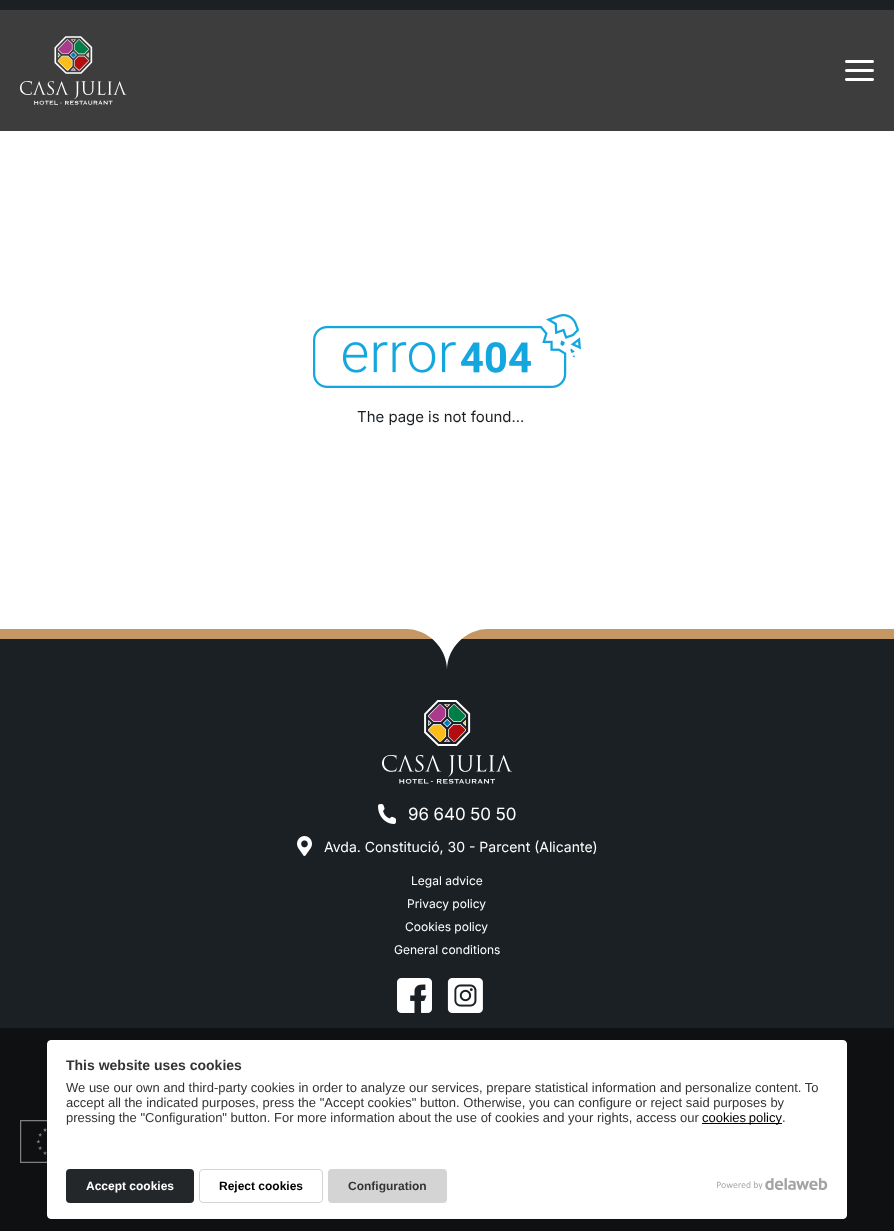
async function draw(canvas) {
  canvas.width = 894
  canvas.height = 1231
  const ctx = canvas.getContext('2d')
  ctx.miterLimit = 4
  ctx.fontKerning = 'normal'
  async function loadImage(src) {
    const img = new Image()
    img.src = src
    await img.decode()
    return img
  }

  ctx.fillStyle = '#fff'
  ctx.fillRect(0, 0, 894, 1231)
  ctx.fillStyle = '#3d3d3d'
  ctx.fillRect(0, 10, 894, 121)
  ctx.fillStyle = '#1b2024'
  ctx.fillRect(0, 0, 894, 10)
  ctx.drawImage(await loadImage('image0.png'), 20, 36, 107, 69)
  ctx.drawImage(await loadImage('image1.png'), 845, 60, 29, 21)
  ctx.drawImage(await loadImage('image2.png'), 313, 314, 268, 74)
  ctx.font = '15px Inter'
  ctx.fillText('The page is not found...', 357, 422)
  ctx.fillRect(0, 639, 894, 389)
  ctx.fillStyle = '#0e1012'
  ctx.fillRect(0, 1028, 894, 203)
  ctx.fillStyle = '#c59764'
  ctx.fillRect(0, 629, 894, 10)
  ctx.fillStyle = '#fff'
  ctx.beginPath()
  ctx.moveTo(488, 629)
  ctx.bezierCurveTo(466, 629, 447, 648, 447, 670)
  ctx.bezierCurveTo(447, 648, 428, 629, 406, 629)
  ctx.closePath()
  ctx.fill()
  ctx.drawImage(await loadImage('image3.png'), 382, 700, 130, 84)
  ctx.drawImage(await loadImage('image4.png'), 378, 804, 18, 20)
  ctx.font = '17px "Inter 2"'
  ctx.fillText('96 640 50 50', 408, 820)
  ctx.drawImage(await loadImage('image5.png'), 297, 836, 15, 20)
  ctx.font = '14px "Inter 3"'
  ctx.fillText('Avda. Constitució, 30 - Parcent (Alicante)', 324, 852)
  ctx.font = '12px "Inter 3"'
  ctx.fillText('Legal advice', 411, 885)
  ctx.fillText('Privacy policy', 407, 908)
  ctx.fillText('Cookies policy', 405, 931)
  ctx.fillText('General conditions', 394, 954)
  ctx.drawImage(await loadImage('image6.png'), 397, 978, 35, 35)
  ctx.drawImage(await loadImage('image7.png'), 447, 978, 36, 35)
  ctx.drawImage(await loadImage('image8.png'), 20, 1120, 27, 43)
  ctx.beginPath()
  ctx.roundRect(47.5, 1040.5, 799, 178, 3.5)
  ctx.fill()
  ctx.strokeStyle = '#fff'
  ctx.stroke()
  ctx.font = 'bold 14px Liberation Sans'
  ctx.fillStyle = '#333'
  ctx.fillText('This website uses cookies', 66, 1070)
  ctx.font = '13px Liberation Sans'
  ctx.fillText('We use our own and third-party cookies in order to analyze our services, prepare statistical information and personalize content. To', 66, 1092)
  ctx.fillText('accept all the indicated purposes, press the "Accept cookies" button. Otherwise, you can configure or reject said purposes by', 66, 1107)
  ctx.fillText('pressing the "Configuration" button. For more information about the use of cookies and your rights, access our', 66, 1122)
  ctx.fillStyle = '#000'
  ctx.fillRect(702, 1123, 80, 1)
  ctx.wordSpacing = '-1px'
  ctx.fillText('cookies policy', 702, 1122)
  ctx.wordSpacing = '0px'
  ctx.fillStyle = '#333'
  ctx.fillText('.', 782, 1122)
  ctx.fillStyle = '#24272a'
  ctx.beginPath()
  ctx.roundRect(66, 1169, 128, 34, 4)
  ctx.fill()
  ctx.font = 'bold 12px Liberation Sans'
  ctx.fillStyle = '#fff'
  ctx.fillText('Accept cookies', 86, 1190)
  ctx.beginPath()
  ctx.roundRect(199.5, 1169.5, 123, 33, 3.5)
  ctx.strokeStyle = '#d4d4d4'
  ctx.stroke()
  ctx.fillStyle = '#000'
  ctx.fillText('Reject cookies', 219, 1190)
  ctx.fillStyle = '#d4d4d4'
  ctx.beginPath()
  ctx.roundRect(328, 1169, 119, 34, 4)
  ctx.fill()
  ctx.fillStyle = '#333'
  ctx.fillText('Configuration', 348, 1190)
  ctx.drawImage(await loadImage('image9.png'), 717, 1178, 111, 12)
}

draw(document.querySelector('canvas'))
